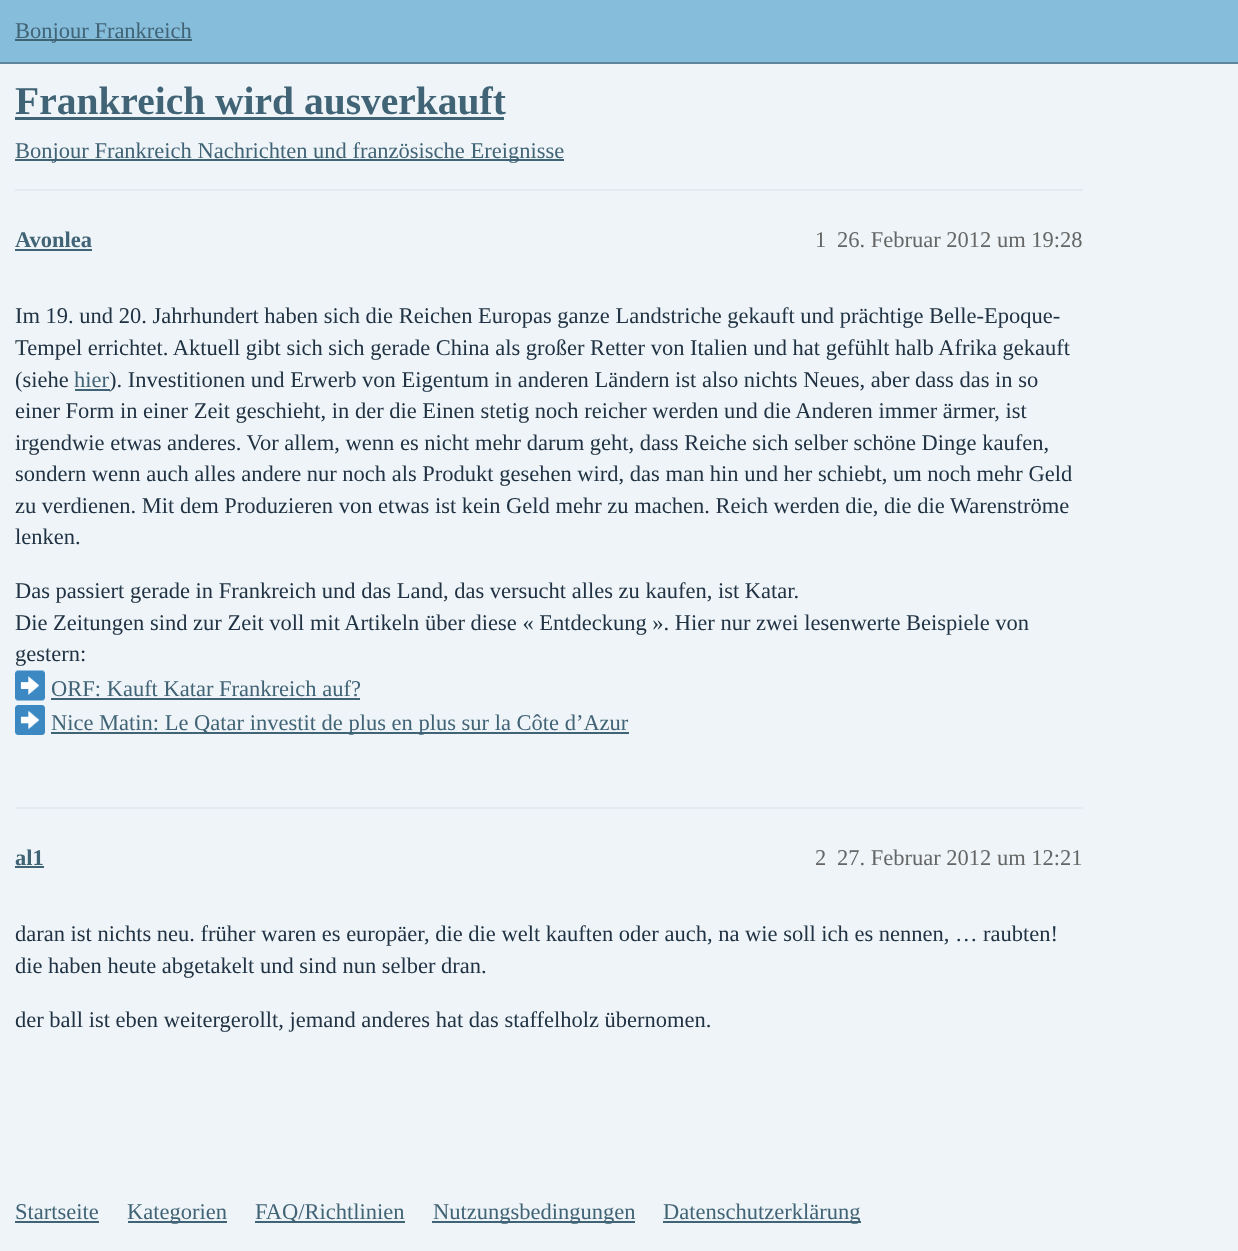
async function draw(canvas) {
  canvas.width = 1238
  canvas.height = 1251
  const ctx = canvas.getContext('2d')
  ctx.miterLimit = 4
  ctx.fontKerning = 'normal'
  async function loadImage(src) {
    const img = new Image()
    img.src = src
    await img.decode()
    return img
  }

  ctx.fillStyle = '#eef4f7'
  ctx.fillRect(0, 0, 1238, 1251)
  ctx.fillStyle = '#86bddb'
  ctx.fillRect(0, 0, 1238, 62)
  ctx.fillStyle = '#5d849b'
  ctx.fillRect(0, 62, 1238, 2)
  ctx.fillStyle = '#416376'
  ctx.fillRect(15, 39, 177, 2)
  ctx.font = '22.5px Liberation Serif'
  ctx.fillText('Bonjour Frankreich', 15, 38)
  ctx.font = 'bold 39.5px Liberation Serif'
  ctx.fillText('Frankreich wird ausverkauft', 15, 114)
  ctx.fillRect(15, 117, 489, 3)
  ctx.fillRect(15, 159, 549, 2)
  ctx.font = '22.5px Liberation Serif'
  ctx.fillText('Bonjour Frankreich Nachrichten und französische Ereignisse', 15, 158)
  ctx.fillStyle = '#e3ebf2'
  ctx.fillRect(15, 189, 1068, 2)
  ctx.font = 'bold 22.5px Liberation Serif'
  ctx.fillStyle = '#416376'
  ctx.fillText('Avonlea', 15, 247)
  ctx.fillRect(15, 249, 77, 2)
  ctx.font = '22.5px Liberation Serif'
  ctx.fillStyle = '#666'
  ctx.fillText('1', 815, 247)
  ctx.fillText('26. Februar 2012 um 19:28', 837, 247)
  ctx.fillStyle = '#203243'
  ctx.fillText('Im 19. und 20. Jahrhundert haben sich die Reichen Europas ganze Landstriche gekauft und prächtige Belle-Epoque-', 15, 323)
  ctx.fillText('Tempel errichtet. Aktuell gibt sich sich gerade China als großer Retter von Italien und hat gefühlt halb Afrika gekauft', 15, 355)
  ctx.fillText('(siehe', 15, 387)
  ctx.fillStyle = '#416376'
  ctx.fillText('hier', 74, 387)
  ctx.fillRect(75, 389, 35, 2)
  ctx.fillStyle = '#203243'
  ctx.fillText('). Investitionen und Erwerb von Eigentum in anderen Ländern ist also nichts Neues, aber dass das in so', 109, 387)
  ctx.fillText('einer Form in einer Zeit geschieht, in der die Einen stetig noch reicher werden und die Anderen immer ärmer, ist', 15, 418)
  ctx.fillText('irgendwie etwas anderes. Vor allem, wenn es nicht mehr darum geht, dass Reiche sich selber schöne Dinge kaufen,', 15, 450)
  ctx.fillText('sondern wenn auch alles andere nur noch als Produkt gesehen wird, das man hin und her schiebt, um noch mehr Geld', 15, 481)
  ctx.fillText('zu verdienen. Mit dem Produzieren von etwas ist kein Geld mehr zu machen. Reich werden die, die die Warenströme', 15, 513)
  ctx.fillText('lenken.', 15, 544)
  ctx.fillText('Das passiert gerade in Frankreich und das Land, das versucht alles zu kaufen, ist Katar.', 15, 598)
  ctx.fillText('Die Zeitungen sind zur Zeit voll mit Artikeln über diese « Entdeckung ». Hier nur zwei lesenwerte Beispiele von', 15, 630)
  ctx.fillText('gestern:', 15, 661)
  ctx.drawImage(await loadImage('image0.png'), 15, 670, 30, 31)
  ctx.fillStyle = '#416376'
  ctx.fillText('ORF: Kauft Katar Frankreich auf?', 51, 696)
  ctx.fillRect(51, 698, 309, 2)
  ctx.drawImage(await loadImage('image1.png'), 15, 705, 30, 30)
  ctx.fillRect(51, 732, 578, 2)
  ctx.fillText('Nice Matin: Le Qatar investit de plus en plus sur la Côte d’Azur', 51, 730)
  ctx.fillStyle = '#e3ebf2'
  ctx.fillRect(15, 807, 1068, 2)
  ctx.font = 'bold 22.5px Liberation Serif'
  ctx.fillStyle = '#416376'
  ctx.fillText('al1', 15, 865)
  ctx.fillRect(15, 866, 29, 2)
  ctx.font = '22.5px Liberation Serif'
  ctx.fillStyle = '#666'
  ctx.fillText('2', 815, 865)
  ctx.fillText('27. Februar 2012 um 12:21', 837, 865)
  ctx.fillStyle = '#203243'
  ctx.fillText('daran ist nichts neu. früher waren es europäer, die die welt kauften oder auch, na wie soll ich es nennen, … raubten!', 15, 941)
  ctx.fillText('die haben heute abgetakelt und sind nun selber dran.', 15, 973)
  ctx.fillText('der ball ist eben weitergerollt, jemand anderes hat das staffelholz übernomen.', 15, 1027)
  ctx.fillStyle = '#416376'
  ctx.fillText('Startseite', 15, 1219)
  ctx.fillRect(15, 1221, 84, 2)
  ctx.fillRect(128, 1221, 99, 2)
  ctx.fillText('Kategorien', 127, 1219)
  ctx.fillRect(255, 1221, 150, 2)
  ctx.fillText('FAQ/Richtlinien', 255, 1219)
  ctx.fillRect(432, 1221, 203, 2)
  ctx.fillText('Nutzungsbedingungen', 433, 1219)
  ctx.fillRect(663, 1221, 198, 2)
  ctx.fillText('Datenschutzerklärung', 663, 1219)
}

draw(document.querySelector('canvas'))
